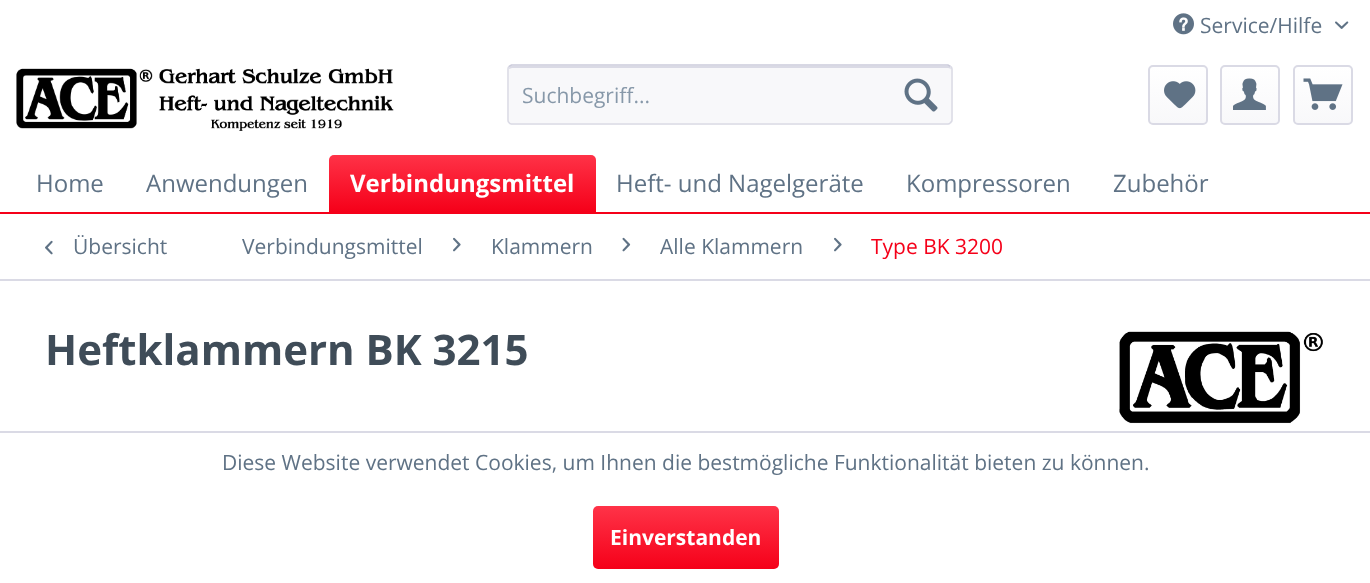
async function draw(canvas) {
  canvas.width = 1370
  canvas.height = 583
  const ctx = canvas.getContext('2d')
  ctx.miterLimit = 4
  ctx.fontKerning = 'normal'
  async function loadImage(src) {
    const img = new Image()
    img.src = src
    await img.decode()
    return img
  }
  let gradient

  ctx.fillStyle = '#fff'
  ctx.fillRect(0, 0, 1370, 583)
  ctx.drawImage(await loadImage('image0.png'), 1173, 13, 21, 22)
  ctx.font = '21px Open Sans'
  ctx.fillStyle = '#5f7285'
  ctx.fillText('Service/Hilfe', 1200, 33)
  ctx.drawImage(await loadImage('image1.png'), 1335, 21, 14, 8)
  ctx.drawImage(await loadImage('image2.png'), 16, 68, 378, 63)
  ctx.fillStyle = '#f8f8fa'
  ctx.beginPath()
  ctx.roundRect(507, 65, 446, 60, 5)
  ctx.fill()
  ctx.fillStyle = '#dadae5'
  ctx.beginPath()
  ctx.moveTo(512, 68)
  ctx.lineTo(948, 68)
  ctx.bezierCurveTo(950, 68, 951, 69, 951, 70)
  ctx.bezierCurveTo(951, 68, 950, 66, 948, 66)
  ctx.lineTo(512, 66)
  ctx.bezierCurveTo(510, 66, 509, 67, 509, 69)
  ctx.closePath()
  ctx.fill()
  ctx.beginPath()
  ctx.moveTo(509, 66.5)
  ctx.lineTo(511.5, 65)
  ctx.lineTo(948, 65)
  ctx.lineTo(950.5, 66.5)
  ctx.strokeStyle = '#cbcbdb'
  ctx.lineWidth = 1.5
  ctx.stroke()
  ctx.beginPath()
  ctx.moveTo(950.5, 66.5)
  ctx.bezierCurveTo(951.5, 67, 952, 68, 952, 69)
  ctx.lineTo(952, 120)
  ctx.bezierCurveTo(952, 121, 951.5, 122, 950.5, 122.5)
  ctx.bezierCurveTo(950, 123.5, 949, 124, 948, 124)
  ctx.lineTo(511.5, 124)
  ctx.bezierCurveTo(510.5, 124, 509.5, 123.5, 509, 122.5)
  ctx.bezierCurveTo(508, 122, 508, 121, 508, 120)
  ctx.lineTo(508, 69)
  ctx.bezierCurveTo(508, 68, 508, 67, 509, 66.5)
  ctx.strokeStyle = '#dadae5'
  ctx.stroke()
  ctx.fillStyle = '#8798a9'
  ctx.fillText('Suchbegriff...', 522, 103)
  ctx.drawImage(await loadImage('image3.png'), 904, 78, 34, 34)
  gradient = ctx.createLinearGradient(1178, 66, 1178, 123)
  gradient.addColorStop(0, '#fff')
  gradient.addColorStop(1, '#f8f8fa')
  ctx.fillStyle = gradient
  ctx.beginPath()
  ctx.roundRect(1149, 66, 57, 57, 3)
  ctx.fill()
  ctx.beginPath()
  ctx.roundRect(1149, 66, 58, 58, 4)
  ctx.lineWidth = 2
  ctx.stroke()
  ctx.drawImage(await loadImage('image4.png'), 1164, 81, 32, 28)
  gradient = ctx.createLinearGradient(1250, 66, 1250, 123)
  gradient.addColorStop(0, '#fff')
  gradient.addColorStop(1, '#f8f8fa')
  ctx.fillStyle = gradient
  ctx.beginPath()
  ctx.roundRect(1221, 66, 57, 57, 3)
  ctx.fill()
  ctx.beginPath()
  ctx.roundRect(1221, 66, 58, 58, 4)
  ctx.stroke()
  ctx.drawImage(await loadImage('image5.png'), 1233, 78, 33, 32)
  gradient = ctx.createLinearGradient(1323, 66, 1323, 123)
  gradient.addColorStop(0, '#fff')
  gradient.addColorStop(1, '#f8f8fa')
  ctx.fillStyle = gradient
  ctx.beginPath()
  ctx.roundRect(1295, 66, 57, 57, 3)
  ctx.fill()
  ctx.beginPath()
  ctx.roundRect(1294, 66, 58, 58, 4)
  ctx.stroke()
  ctx.drawImage(await loadImage('image6.png'), 1303, 78, 40, 32)
  ctx.fillStyle = '#f50019'
  ctx.fillRect(0, 212, 1370, 2)
  ctx.font = '24px Open Sans'
  ctx.fillStyle = '#5f7285'
  ctx.fillText('Home', 36, 192)
  ctx.fillText('Anwendungen', 146, 192)
  gradient = ctx.createLinearGradient(462, 154, 462, 212)
  gradient.addColorStop(0, '#ff3348')
  gradient.addColorStop(1, '#f50019')
  ctx.fillStyle = gradient
  ctx.beginPath()
  ctx.roundRect(329, 155, 267, 57, [5, 5, 0, 0])
  ctx.fill()
  ctx.font = 'bold 24px Open Sans'
  ctx.fillStyle = '#fff'
  ctx.fillText('Verbindungsmittel', 350, 192)
  ctx.font = '24px Open Sans'
  ctx.fillStyle = '#5f7285'
  ctx.fillText('Heft- und Nagelgeräte', 616, 192)
  ctx.fillText('Kompressoren', 906, 192)
  ctx.fillText('Zubehör', 1113, 192)
  ctx.fillStyle = '#dadae5'
  ctx.fillRect(0, 279, 1370, 2)
  ctx.drawImage(await loadImage('image7.png'), 45, 240, 8, 15)
  ctx.font = '21px Open Sans'
  ctx.fillStyle = '#5f7285'
  ctx.fillText('Übersicht', 73, 254)
  ctx.fillText('Verbindungsmittel', 242, 254)
  ctx.drawImage(await loadImage('image8.png'), 453, 237, 8, 15)
  ctx.fillText('Klammern', 491, 254)
  ctx.drawImage(await loadImage('image9.png'), 622, 237, 9, 15)
  ctx.fillText('Alle Klammern', 660, 254)
  ctx.drawImage(await loadImage('image8.png'), 834, 237, 8, 15)
  ctx.fillStyle = '#f50019'
  ctx.fillText('Type BK 3200', 871, 254)
  ctx.font = 'bold 42px Open Sans'
  ctx.fillStyle = '#3f4c58'
  ctx.fillText('Heftklammern BK 3215', 45, 365)
  ctx.drawImage(await loadImage('image10.png'), 1119, 331, 204, 93)
  ctx.fillStyle = '#dadae5'
  ctx.fillRect(0, 431, 1370, 2)
  ctx.font = '21px Open Sans'
  ctx.fillStyle = '#5f7285'
  ctx.fillText('Diese Website verwendet Cookies, um Ihnen die bestmögliche Funktionalität bieten zu können.', 222, 470)
  gradient = ctx.createLinearGradient(686, 506, 686, 569)
  gradient.addColorStop(0, '#ff3348')
  gradient.addColorStop(1, '#f50019')
  ctx.fillStyle = gradient
  ctx.beginPath()
  ctx.roundRect(593, 506, 186, 63, 5)
  ctx.fill()
  ctx.font = 'bold 21px Open Sans'
  ctx.fillStyle = '#fff'
  ctx.fillText('Einverstanden', 610, 545)
}

draw(document.querySelector('canvas'))
